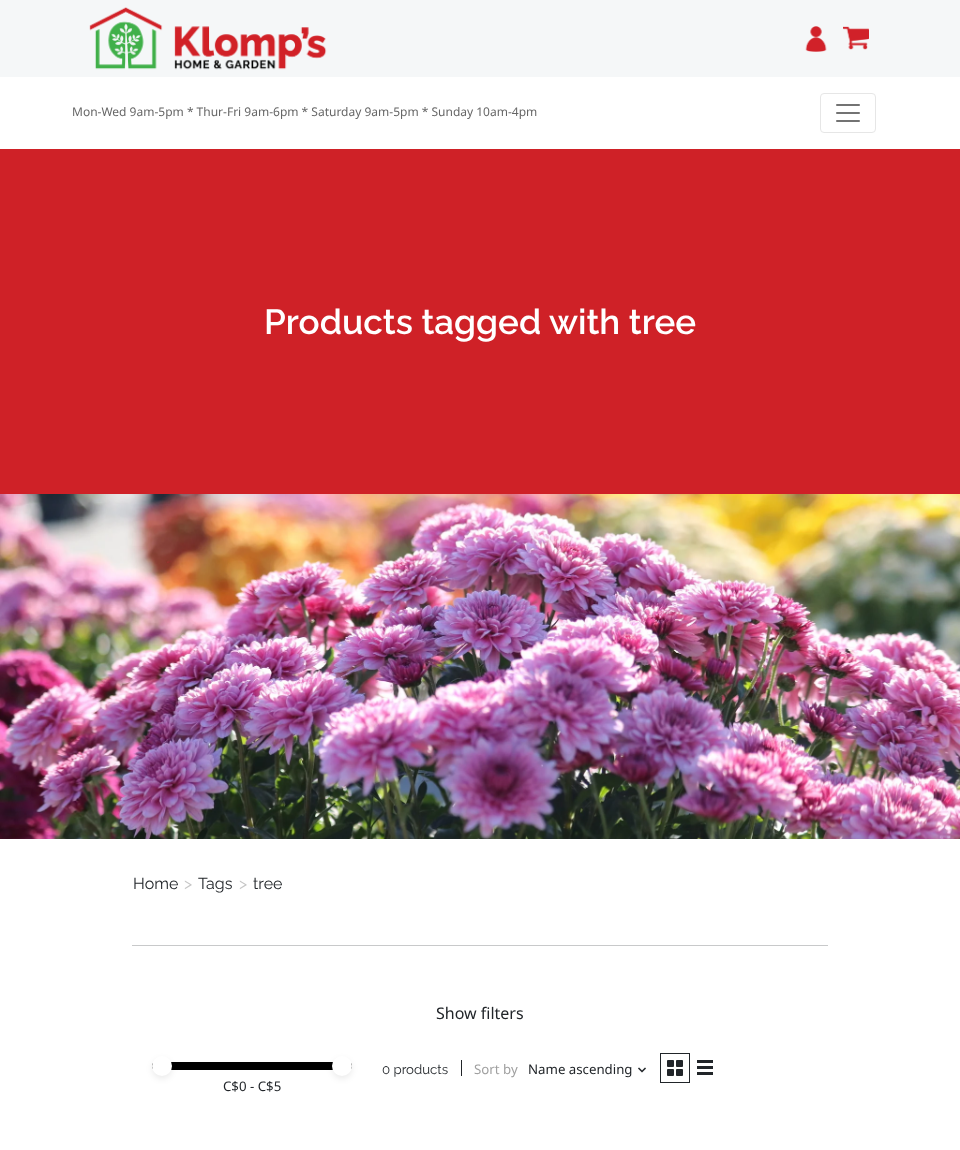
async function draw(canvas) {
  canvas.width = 960
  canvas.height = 1150
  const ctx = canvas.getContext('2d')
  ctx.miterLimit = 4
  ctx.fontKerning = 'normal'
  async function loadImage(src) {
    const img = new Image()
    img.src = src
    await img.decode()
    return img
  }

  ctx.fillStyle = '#fff'
  ctx.fillRect(0, 0, 960, 1150)
  ctx.fillStyle = '#f5f7f8'
  ctx.fillRect(0, 0, 960, 77)
  ctx.drawImage(await loadImage('image0.png'), 89, 7, 238, 63)
  ctx.drawImage(await loadImage('image1.png'), 805, 26, 22, 26)
  ctx.drawImage(await loadImage('image2.png'), 843, 26, 26, 24)
  ctx.font = '12px Noto Sans'
  ctx.fillStyle = '#666'
  ctx.fillText('Mon-Wed 9am-5pm * Thur-Fri 9am-6pm * Saturday 9am-5pm * Sunday 10am-4pm', 72, 116)
  ctx.beginPath()
  ctx.roundRect(820.5, 93.5, 55, 39, 3.5)
  ctx.strokeStyle = '#e6e6e6'
  ctx.stroke()
  ctx.drawImage(await loadImage('image3.png'), 836, 104, 24, 18)
  ctx.fillStyle = '#cf2127'
  ctx.fillRect(0, 149, 960, 345)
  ctx.font = '600 35px Raleway'
  ctx.fillStyle = '#fff'
  ctx.fillText('Products tagged with tree', 264, 334)
  ctx.drawImage(await loadImage('image4.png'), 0, 494, 960, 345)
  ctx.font = '100 16px Raleway'
  ctx.fillStyle = '#212529'
  ctx.fillText('Home', 133, 889)
  ctx.fillStyle = '#c6c6c6'
  ctx.fillText('>', 184, 889)
  ctx.fillStyle = '#212529'
  ctx.fillText('Tags', 198, 889)
  ctx.fillStyle = '#c6c6c6'
  ctx.fillText('>', 239, 889)
  ctx.fillStyle = '#212529'
  ctx.fillText('tree', 253, 889)
  ctx.fillStyle = '#c8c9ca'
  ctx.fillRect(132, 945, 696, 1)
  ctx.font = '16px Noto Sans'
  ctx.fillStyle = '#212529'
  ctx.fillText('Show filters', 436, 1019)
  ctx.font = '100 13.25px Raleway'
  ctx.fillText('0 products', 382, 1074)
  ctx.fillRect(461, 1060, 1, 16)
  ctx.font = '13.25px Noto Sans'
  ctx.fillStyle = '#a0a0a0'
  ctx.fillText('Sort by', 474, 1074)
  ctx.fillStyle = '#212529'
  ctx.fillText('Name ascending', 528, 1074)
  ctx.drawImage(await loadImage('image5.png'), 638, 1067, 8, 6)
  ctx.strokeStyle = '#212529'
  ctx.strokeRect(660.5, 1053.5, 29, 29)
  ctx.drawImage(await loadImage('image6.png'), 667, 1060, 16, 16)
  ctx.fillRect(697, 1060, 16, 3)
  ctx.fillRect(697, 1066, 16, 3)
  ctx.fillRect(697, 1072, 16, 3)
  ctx.fillStyle = '#000'
  ctx.beginPath()
  ctx.roundRect(152, 1062, 200, 8, 4)
  ctx.fill()
  ctx.fillStyle = '#00000014'
  ctx.filter = 'blur(3px)'
  ctx.beginPath()
  ctx.roundRect(152, 1059, 20, 20, 10)
  ctx.fill()
  ctx.filter = 'none'
  ctx.fillStyle = '#fff'
  ctx.beginPath()
  ctx.arc(162, 1066, 10, 0, 2 * Math.PI)
  ctx.fill()
  ctx.fillStyle = '#212529'
  ctx.fillText('C$0 - C$5', 223, 1091)
  ctx.fillStyle = '#00000014'
  ctx.filter = 'blur(3px)'
  ctx.beginPath()
  ctx.roundRect(332, 1059, 20, 20, 10)
  ctx.fill()
  ctx.filter = 'none'
  ctx.fillStyle = '#fff'
  ctx.beginPath()
  ctx.arc(342, 1066, 10, 0, 2 * Math.PI)
  ctx.fill()
}

draw(document.querySelector('canvas'))
